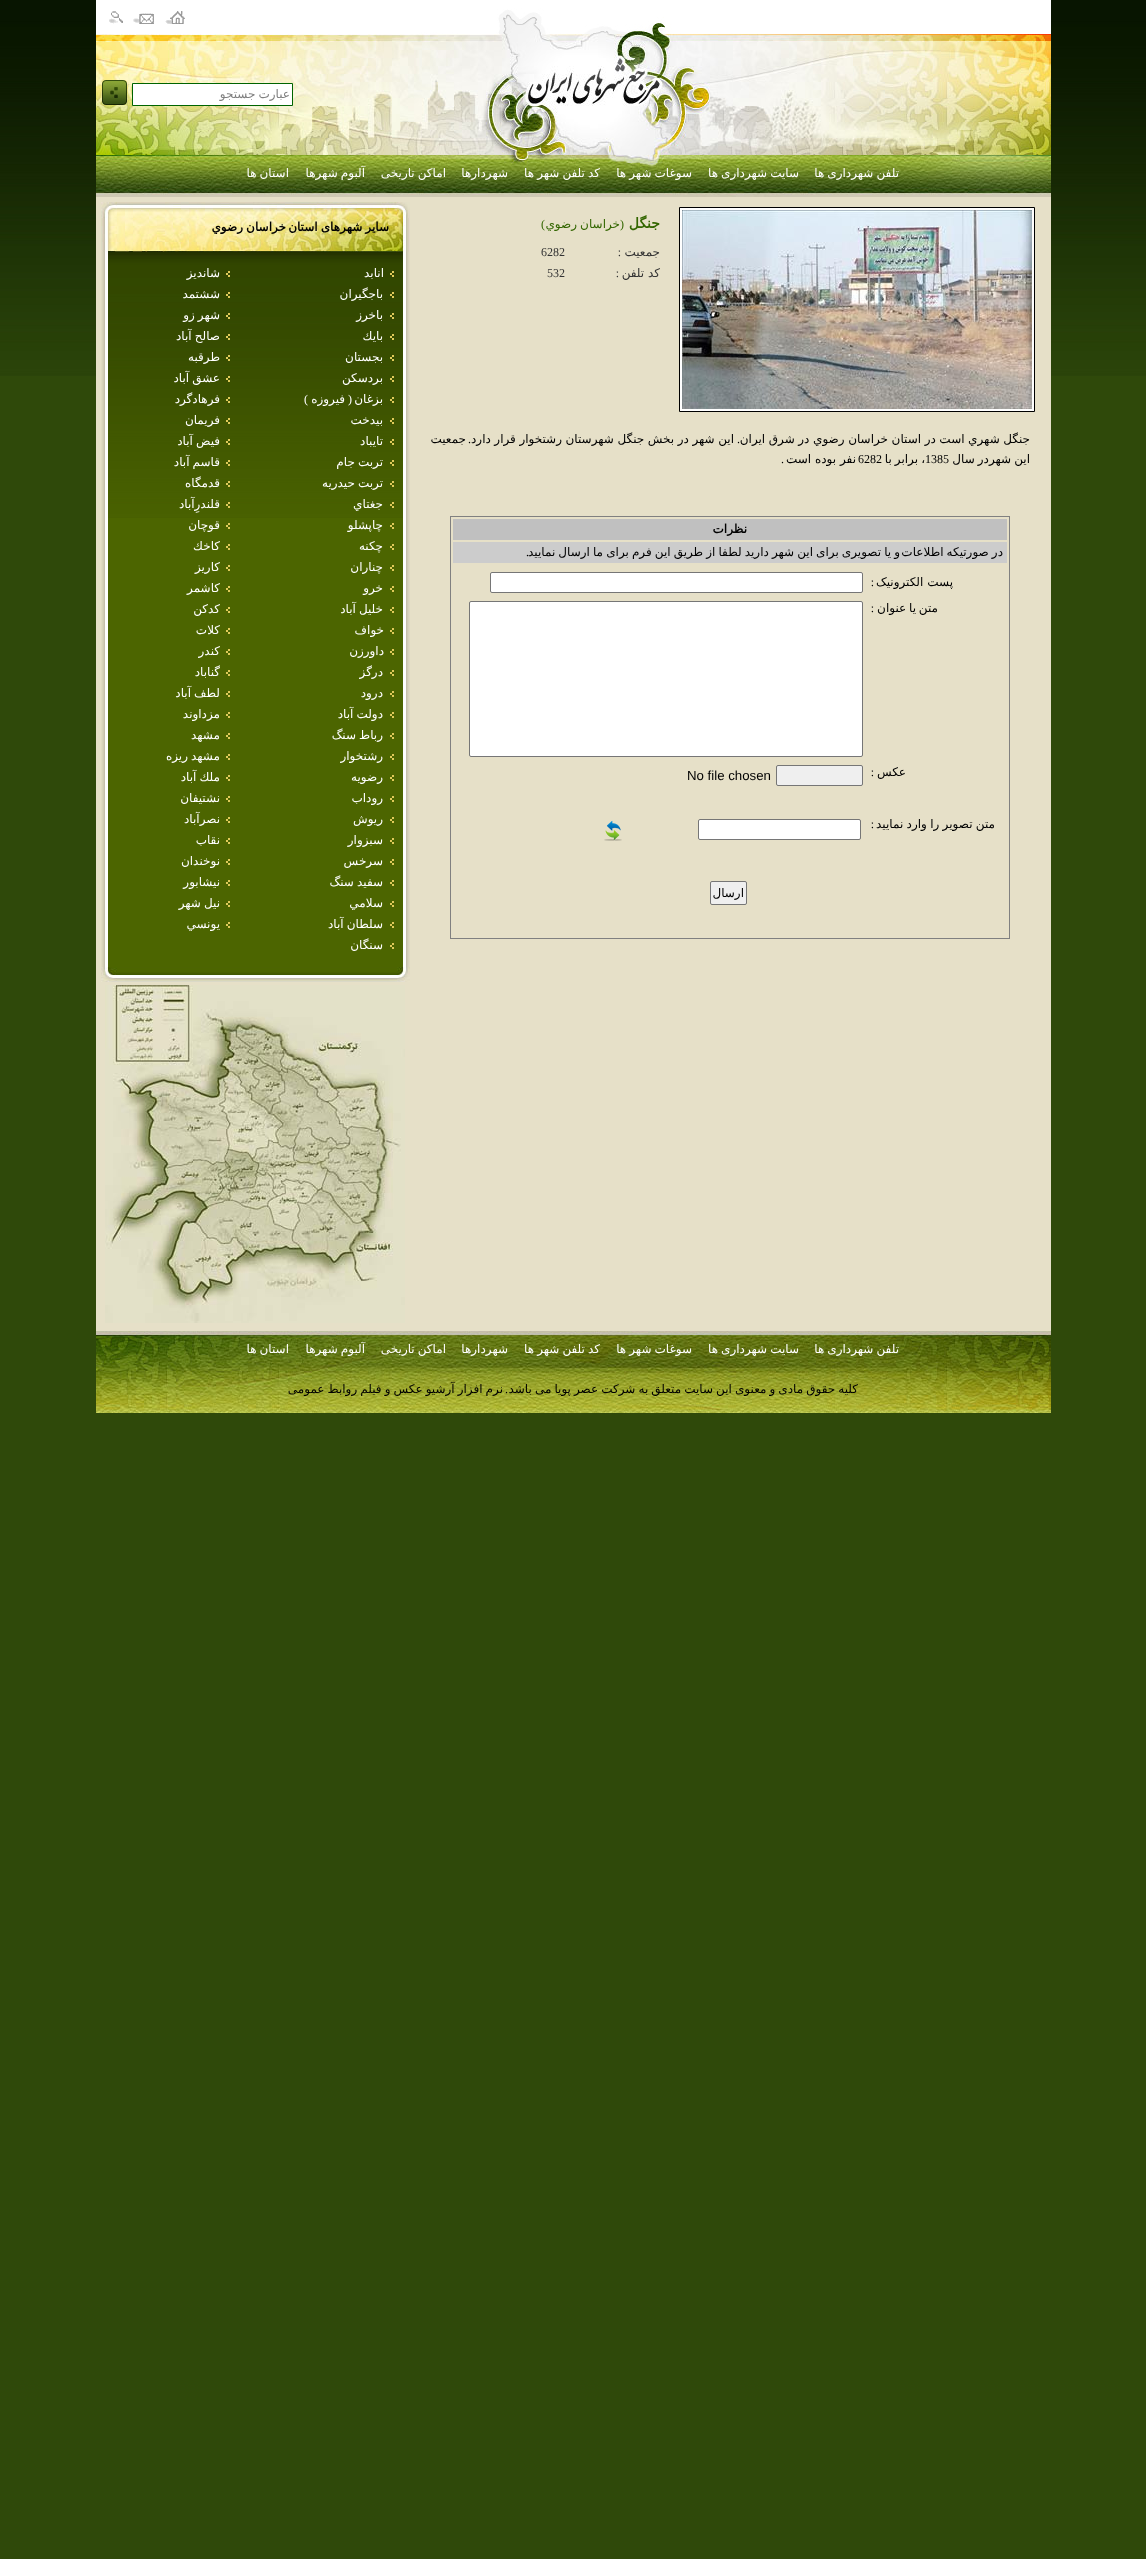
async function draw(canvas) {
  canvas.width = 1146
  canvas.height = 2559
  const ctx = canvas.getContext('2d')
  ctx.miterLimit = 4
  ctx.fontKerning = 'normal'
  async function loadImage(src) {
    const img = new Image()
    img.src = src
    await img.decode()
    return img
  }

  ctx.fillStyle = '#2f490a'
  ctx.fillRect(0, 0, 1146, 2559)
  ctx.drawImage(await loadImage('image0.png'), 0, 0, 1146, 376)
  ctx.fillStyle = '#fff'
  ctx.fillRect(733, 0, 318, 34)
  ctx.drawImage(await loadImage('image1.png'), 414, 0, 319, 34)
  ctx.fillRect(96, 0, 318, 34)
  ctx.drawImage(await loadImage('image2.png'), 165, 11, 20, 13)
  ctx.drawImage(await loadImage('image3.png'), 133, 13, 21, 11)
  ctx.drawImage(await loadImage('image4.png'), 109, 11, 14, 13)
  ctx.drawImage(await loadImage('image5.png'), 733, 34, 318, 121)
  ctx.drawImage(await loadImage('image6.png'), 414, 34, 319, 121)
  ctx.drawImage(await loadImage('image7.png'), 96, 34, 318, 121)
  ctx.beginPath()
  ctx.rect(132.5, 83.5, 160, 22)
  ctx.fill()
  ctx.strokeStyle = '#006400'
  ctx.stroke()
  ctx.wordSpacing = '-0.75px'
  ctx.direction = 'rtl'
  ctx.font = '12px DejaVu Sans'
  ctx.fillStyle = '#808080'
  ctx.fillText('عبارت جستجو', 290, 98)
  ctx.drawImage(await loadImage('image8.png'), 102, 80, 25, 25)
  ctx.drawImage(await loadImage('image9.png'), 96, 155, 955, 42)
  ctx.fillStyle = '#fff'
  ctx.fillText('تلفن شهرداری ها', 899, 177)
  ctx.fillText('سایت شهرداری ها', 799, 177)
  ctx.fillText('سوغات شهر ها', 692, 177)
  ctx.fillText('کد تلفن شهر ها', 600, 177)
  ctx.wordSpacing = '0px'
  ctx.fillText('شهردارها', 508, 177)
  ctx.wordSpacing = '-0.75px'
  ctx.fillText('اماکن تاریخی', 446, 177)
  ctx.fillText('آلبوم شهرها', 365, 177)
  ctx.fillText('استان ها', 289, 177)
  ctx.fillStyle = '#e6e0c8'
  ctx.fillRect(96, 197, 955, 1134)
  ctx.fillStyle = '#fff'
  ctx.beginPath()
  ctx.rect(679.5, 207.5, 355, 204)
  ctx.fill()
  ctx.strokeStyle = '#000'
  ctx.stroke()
  ctx.drawImage(await loadImage('image10.png'), 682, 210, 350, 199)
  ctx.wordSpacing = '0px'
  ctx.font = 'bold 14px DejaVu Sans'
  ctx.fillStyle = '#360'
  ctx.fillText('جنگل', 660, 228)
  ctx.font = '12px Liberation Serif'
  ctx.fillText('(', 624, 228)
  ctx.wordSpacing = '-0.75px'
  ctx.font = '12px DejaVu Sans'
  ctx.fillText('خراسان رضوي', 620, 228)
  ctx.wordSpacing = '0px'
  ctx.font = '12px Liberation Serif'
  ctx.fillText(')', 545, 228)
  ctx.font = '12px DejaVu Sans'
  ctx.fillStyle = '#333'
  ctx.fillText('جمعیت', 660, 256)
  ctx.font = '12px Liberation Serif'
  ctx.fillText(':', 621, 256)
  ctx.direction = 'ltr'
  ctx.fillText('6282', 541, 256)
  ctx.direction = 'rtl'
  ctx.font = '12px DejaVu Sans'
  ctx.fillText('کد تلفن', 660, 277)
  ctx.font = '12px Liberation Serif'
  ctx.fillText(':', 619, 277)
  ctx.direction = 'ltr'
  ctx.fillText('532', 547, 277)
  ctx.wordSpacing = '-0.25px'
  ctx.direction = 'rtl'
  ctx.font = '12px DejaVu Sans'
  ctx.fillStyle = '#000'
  ctx.fillText('جنگل شهري است در استان خراسان رضوي در شرق ايران', 1030, 443)
  ctx.wordSpacing = '0px'
  ctx.font = '12px Liberation Serif'
  ctx.fillText('.', 740, 443)
  ctx.wordSpacing = '-0.25px'
  ctx.font = '12px DejaVu Sans'
  ctx.fillText('اين شهر در بخش جنگل شهرستان رشتخوار قرار دارد', 734, 443)
  ctx.wordSpacing = '0px'
  ctx.font = '12px Liberation Serif'
  ctx.fillText('.', 471, 443)
  ctx.font = '12px DejaVu Sans'
  ctx.fillText('جمعيت', 466, 443)
  ctx.wordSpacing = '-0.75px'
  ctx.fillText('اين شهردر سال', 1030, 463)
  ctx.fillText('، برابر با', 925, 463)
  ctx.wordSpacing = '0px'
  ctx.direction = 'ltr'
  ctx.font = '12px Liberation Serif'
  ctx.fillText('1385', 925, 463)
  ctx.fillText('6282', 858, 463)
  ctx.direction = 'rtl'
  ctx.font = '12px DejaVu Sans'
  ctx.fillText('نفر بوده است', 856, 463)
  ctx.font = '12px Liberation Serif'
  ctx.fillText('.', 784, 463)
  ctx.strokeStyle = '#808080'
  ctx.strokeRect(450.5, 516.5, 559, 422)
  ctx.fillStyle = '#c0c0c0'
  ctx.fillRect(453, 519, 554, 21)
  ctx.font = 'bold 12px DejaVu Sans'
  ctx.fillStyle = '#000'
  ctx.fillText('نظرات', 747, 533)
  ctx.fillStyle = '#ccc'
  ctx.fillRect(453, 542, 554, 21)
  ctx.wordSpacing = '-0.75px'
  ctx.font = '12px DejaVu Sans'
  ctx.fillStyle = '#000'
  ctx.fillText('و یا تصویری برای این شهر دارید لطفا از طریق این فرم برای', 900, 556)
  ctx.fillText('در صورتیکه اطلاعات', 1003, 556)
  ctx.fillText('ما ارسال نمایید', 603, 556)
  ctx.wordSpacing = '0px'
  ctx.font = '12px Liberation Serif'
  ctx.fillText('.', 529, 556)
  ctx.font = '12px DejaVu Sans'
  ctx.fillText('پست الکترونیک', 953, 586)
  ctx.font = '12px Liberation Serif'
  ctx.fillText(':', 874, 586)
  ctx.fillStyle = '#fff'
  ctx.beginPath()
  ctx.roundRect(490.5, 572.5, 372, 20, 1.5)
  ctx.fill()
  ctx.strokeStyle = '#767676'
  ctx.stroke()
  ctx.wordSpacing = '-1px'
  ctx.font = '12px DejaVu Sans'
  ctx.fillStyle = '#000'
  ctx.fillText('متن یا عنوان', 938, 612)
  ctx.wordSpacing = '0px'
  ctx.font = '12px Liberation Serif'
  ctx.fillText(':', 874, 612)
  ctx.fillStyle = '#fff'
  ctx.beginPath()
  ctx.roundRect(469.5, 601.5, 393, 155, 1.5)
  ctx.fill()
  ctx.stroke()
  ctx.font = '12px DejaVu Sans'
  ctx.fillStyle = '#000'
  ctx.fillText('عکس', 906, 776)
  ctx.font = '12px Liberation Serif'
  ctx.fillText(':', 874, 776)
  ctx.fillStyle = '#efefef'
  ctx.beginPath()
  ctx.roundRect(776.5, 765.5, 86, 20, 1.5)
  ctx.fill()
  ctx.stroke()
  ctx.direction = 'ltr'
  ctx.font = '13.25px Liberation Sans'
  ctx.fillStyle = '#000'
  ctx.fillText('No file chosen', 687, 780)
  ctx.wordSpacing = '-0.5px'
  ctx.direction = 'rtl'
  ctx.font = '12px DejaVu Sans'
  ctx.fillText('متن تصویر را وارد نمایید', 995, 828)
  ctx.wordSpacing = '0px'
  ctx.font = '12px Liberation Serif'
  ctx.fillText(':', 874, 828)
  ctx.fillStyle = '#fff'
  ctx.beginPath()
  ctx.roundRect(698.5, 819.5, 162, 20, 1.5)
  ctx.fill()
  ctx.stroke()
  ctx.drawImage(await loadImage('image11.png'), 604, 820, 18, 21)
  ctx.fillStyle = '#efefef'
  ctx.beginPath()
  ctx.roundRect(710.5, 881.5, 36, 23, 1.5)
  ctx.fill()
  ctx.stroke()
  ctx.font = '12px DejaVu Sans'
  ctx.fillStyle = '#000'
  ctx.fillText('ارسال', 744, 897)
  ctx.drawImage(await loadImage('image12.png'), 101, 202, 309, 50)
  ctx.wordSpacing = '-0.75px'
  ctx.font = 'bold 12px DejaVu Sans'
  ctx.fillText('سایر شهرهای استان', 389, 231)
  ctx.fillText('خراسان رضوي', 286, 231)
  ctx.drawImage(await loadImage('image13.png'), 403, 252, 7, 715)
  ctx.fillStyle = '#4c6500'
  ctx.fillRect(108, 518, 295, 449)
  ctx.drawImage(await loadImage('image14.png'), 108, 252, 295, 266)
  ctx.drawImage(await loadImage('image15.png'), 390, 271, 4, 6)
  ctx.wordSpacing = '0px'
  ctx.font = '12px DejaVu Sans'
  ctx.fillStyle = '#fff'
  ctx.fillText('انابد', 384, 277)
  ctx.drawImage(await loadImage('image15.png'), 226, 271, 4, 6)
  ctx.fillText('شانديز', 220, 277)
  ctx.drawImage(await loadImage('image16.png'), 390, 292, 4, 6)
  ctx.fillText('باجگيران', 383, 298)
  ctx.drawImage(await loadImage('image16.png'), 226, 292, 4, 6)
  ctx.fillText('ششتمد', 220, 298)
  ctx.drawImage(await loadImage('image17.png'), 390, 313, 4, 6)
  ctx.fillText('باخرز', 383, 319)
  ctx.drawImage(await loadImage('image17.png'), 226, 313, 4, 6)
  ctx.wordSpacing = '-0.75px'
  ctx.fillText('شهر زو', 220, 319)
  ctx.drawImage(await loadImage('image18.png'), 390, 334, 4, 6)
  ctx.wordSpacing = '0px'
  ctx.fillText('بايك', 383, 340)
  ctx.drawImage(await loadImage('image18.png'), 226, 334, 4, 6)
  ctx.wordSpacing = '-0.75px'
  ctx.fillText('صالح آباد', 220, 340)
  ctx.drawImage(await loadImage('image19.png'), 390, 355, 4, 6)
  ctx.wordSpacing = '0px'
  ctx.fillText('بجستان', 383, 361)
  ctx.drawImage(await loadImage('image19.png'), 226, 355, 4, 6)
  ctx.fillText('طرقبه', 220, 361)
  ctx.drawImage(await loadImage('image20.png'), 390, 376, 4, 6)
  ctx.fillText('بردسكن', 383, 382)
  ctx.drawImage(await loadImage('image20.png'), 226, 376, 4, 6)
  ctx.wordSpacing = '-0.75px'
  ctx.fillText('عشق آباد', 220, 382)
  ctx.drawImage(await loadImage('image21.png'), 390, 397, 4, 6)
  ctx.wordSpacing = '0px'
  ctx.fillText('بزغان', 383, 403)
  ctx.font = '12px Liberation Serif'
  ctx.fillText('(', 352, 403)
  ctx.font = '12px DejaVu Sans'
  ctx.fillText('فيروزه', 345, 403)
  ctx.font = '12px Liberation Serif'
  ctx.fillText(')', 308, 403)
  ctx.drawImage(await loadImage('image21.png'), 226, 397, 4, 6)
  ctx.font = '12px DejaVu Sans'
  ctx.fillText('فرهادگرد', 220, 403)
  ctx.drawImage(await loadImage('image22.png'), 390, 418, 4, 6)
  ctx.fillText('بيدخت', 383, 424)
  ctx.drawImage(await loadImage('image22.png'), 226, 418, 4, 6)
  ctx.fillText('فريمان', 220, 424)
  ctx.drawImage(await loadImage('image23.png'), 390, 439, 4, 6)
  ctx.fillText('تايباد', 383, 445)
  ctx.drawImage(await loadImage('image23.png'), 226, 439, 4, 6)
  ctx.wordSpacing = '-0.75px'
  ctx.fillText('فيض آباد', 220, 445)
  ctx.drawImage(await loadImage('image24.png'), 390, 460, 4, 6)
  ctx.fillText('تربت جام', 383, 466)
  ctx.drawImage(await loadImage('image24.png'), 226, 460, 4, 6)
  ctx.fillText('قاسم آباد', 220, 466)
  ctx.drawImage(await loadImage('image25.png'), 390, 481, 4, 6)
  ctx.fillText('تربت حيدريه', 383, 487)
  ctx.drawImage(await loadImage('image25.png'), 226, 481, 4, 6)
  ctx.wordSpacing = '0px'
  ctx.fillText('قدمگاه', 220, 487)
  ctx.drawImage(await loadImage('image26.png'), 390, 502, 4, 6)
  ctx.fillText('جغتاي', 383, 508)
  ctx.drawImage(await loadImage('image26.png'), 226, 502, 4, 6)
  ctx.fillText('قلندرِآباد', 220, 508)
  ctx.drawImage(await loadImage('image27.png'), 390, 523, 4, 6)
  ctx.fillText('چاپشلو', 383, 529)
  ctx.drawImage(await loadImage('image27.png'), 226, 523, 4, 6)
  ctx.fillText('قوچان', 220, 529)
  ctx.drawImage(await loadImage('image27.png'), 390, 544, 4, 6)
  ctx.fillText('چکنه', 383, 550)
  ctx.drawImage(await loadImage('image27.png'), 226, 544, 4, 6)
  ctx.fillText('كاخك', 220, 550)
  ctx.drawImage(await loadImage('image27.png'), 390, 565, 4, 6)
  ctx.fillText('چناران', 383, 571)
  ctx.drawImage(await loadImage('image27.png'), 226, 565, 4, 6)
  ctx.fillText('كاريز', 220, 571)
  ctx.drawImage(await loadImage('image27.png'), 390, 586, 4, 6)
  ctx.fillText('خرو', 383, 592)
  ctx.drawImage(await loadImage('image27.png'), 226, 586, 4, 6)
  ctx.fillText('كاشمر', 220, 592)
  ctx.drawImage(await loadImage('image27.png'), 390, 607, 4, 6)
  ctx.wordSpacing = '-0.75px'
  ctx.fillText('خليل آباد', 383, 613)
  ctx.drawImage(await loadImage('image27.png'), 226, 607, 4, 6)
  ctx.wordSpacing = '0px'
  ctx.fillText('كدكن', 220, 613)
  ctx.drawImage(await loadImage('image27.png'), 390, 628, 4, 6)
  ctx.fillText('خواف', 384, 634)
  ctx.drawImage(await loadImage('image27.png'), 226, 628, 4, 6)
  ctx.fillText('كلات', 220, 634)
  ctx.drawImage(await loadImage('image27.png'), 390, 649, 4, 6)
  ctx.fillText('داورزن', 384, 655)
  ctx.drawImage(await loadImage('image27.png'), 226, 649, 4, 6)
  ctx.fillText('كندر', 220, 655)
  ctx.drawImage(await loadImage('image27.png'), 390, 670, 4, 6)
  ctx.fillText('درگز', 383, 676)
  ctx.drawImage(await loadImage('image27.png'), 226, 670, 4, 6)
  ctx.fillText('گناباد', 220, 676)
  ctx.drawImage(await loadImage('image27.png'), 390, 691, 4, 6)
  ctx.fillText('درود', 383, 697)
  ctx.drawImage(await loadImage('image27.png'), 226, 691, 4, 6)
  ctx.wordSpacing = '-0.75px'
  ctx.fillText('لطف آباد', 220, 697)
  ctx.drawImage(await loadImage('image27.png'), 390, 712, 4, 6)
  ctx.fillText('دولت آباد', 383, 718)
  ctx.drawImage(await loadImage('image27.png'), 226, 712, 4, 6)
  ctx.wordSpacing = '0px'
  ctx.fillText('مزداوند', 220, 718)
  ctx.drawImage(await loadImage('image27.png'), 390, 733, 4, 6)
  ctx.wordSpacing = '-0.75px'
  ctx.fillText('رباط سنگ', 383, 739)
  ctx.drawImage(await loadImage('image27.png'), 226, 733, 4, 6)
  ctx.wordSpacing = '0px'
  ctx.fillText('مشهد', 220, 739)
  ctx.drawImage(await loadImage('image27.png'), 390, 754, 4, 6)
  ctx.fillText('رشتخوار', 383, 760)
  ctx.drawImage(await loadImage('image27.png'), 226, 754, 4, 6)
  ctx.wordSpacing = '-0.75px'
  ctx.fillText('مشهد ريزه', 220, 760)
  ctx.drawImage(await loadImage('image27.png'), 390, 775, 4, 6)
  ctx.wordSpacing = '0px'
  ctx.fillText('رضويه', 383, 781)
  ctx.drawImage(await loadImage('image27.png'), 226, 775, 4, 6)
  ctx.wordSpacing = '-0.75px'
  ctx.fillText('ملك آباد', 220, 781)
  ctx.drawImage(await loadImage('image27.png'), 390, 796, 4, 6)
  ctx.wordSpacing = '0px'
  ctx.fillText('روداب', 383, 802)
  ctx.drawImage(await loadImage('image27.png'), 226, 796, 4, 6)
  ctx.fillText('نشتيفان', 220, 802)
  ctx.drawImage(await loadImage('image27.png'), 390, 817, 4, 6)
  ctx.fillText('ريوش', 383, 823)
  ctx.drawImage(await loadImage('image27.png'), 226, 817, 4, 6)
  ctx.fillText('نصرآباد', 220, 823)
  ctx.drawImage(await loadImage('image27.png'), 390, 838, 4, 6)
  ctx.fillText('سبزوار', 383, 844)
  ctx.drawImage(await loadImage('image27.png'), 226, 838, 4, 6)
  ctx.fillText('نقاب', 220, 844)
  ctx.drawImage(await loadImage('image27.png'), 390, 859, 4, 6)
  ctx.fillText('سرخس', 383, 865)
  ctx.drawImage(await loadImage('image27.png'), 226, 859, 4, 6)
  ctx.fillText('نوخندان', 220, 865)
  ctx.drawImage(await loadImage('image27.png'), 390, 880, 4, 6)
  ctx.wordSpacing = '-0.75px'
  ctx.fillText('سفيد سنگ', 383, 886)
  ctx.drawImage(await loadImage('image27.png'), 226, 880, 4, 6)
  ctx.wordSpacing = '0px'
  ctx.fillText('نيشابور', 220, 886)
  ctx.drawImage(await loadImage('image27.png'), 390, 901, 4, 6)
  ctx.fillText('سلامي', 383, 907)
  ctx.drawImage(await loadImage('image27.png'), 226, 901, 4, 6)
  ctx.wordSpacing = '-0.75px'
  ctx.fillText('نيل شهر', 220, 907)
  ctx.drawImage(await loadImage('image27.png'), 390, 922, 4, 6)
  ctx.fillText('سلطان آباد', 383, 928)
  ctx.drawImage(await loadImage('image27.png'), 226, 922, 4, 6)
  ctx.wordSpacing = '0px'
  ctx.fillText('يونسي', 220, 928)
  ctx.drawImage(await loadImage('image27.png'), 390, 943, 4, 6)
  ctx.fillText('سنگان', 383, 949)
  ctx.drawImage(await loadImage('image28.png'), 101, 252, 7, 715)
  ctx.drawImage(await loadImage('image29.png'), 101, 967, 309, 15)
  ctx.drawImage(await loadImage('image30.png'), 105, 985, 300, 338)
  ctx.drawImage(await loadImage('image31.png'), 96, 1331, 955, 82)
  ctx.wordSpacing = '-0.75px'
  ctx.fillText('تلفن شهرداری ها', 899, 1353)
  ctx.fillText('سایت شهرداری ها', 799, 1353)
  ctx.fillText('سوغات شهر ها', 692, 1353)
  ctx.fillText('کد تلفن شهر ها', 600, 1353)
  ctx.wordSpacing = '0px'
  ctx.fillText('شهردارها', 508, 1353)
  ctx.wordSpacing = '-0.75px'
  ctx.fillText('اماکن تاریخی', 446, 1353)
  ctx.fillText('آلبوم شهرها', 365, 1353)
  ctx.fillText('استان ها', 289, 1353)
  ctx.fillStyle = '#000'
  ctx.fillText('کلیه حقوق مادی و معنوی این سایت متعلق به شرکت عصر پویا می باشد', 858, 1393)
  ctx.wordSpacing = '0px'
  ctx.font = '12px Liberation Serif'
  ctx.fillText('.', 508, 1393)
  ctx.wordSpacing = '-0.75px'
  ctx.font = '12px DejaVu Sans'
  ctx.fillText('نرم افزار آرشیو عکس و فیلم روابط عمومی', 503, 1393)
}

draw(document.querySelector('canvas'))
